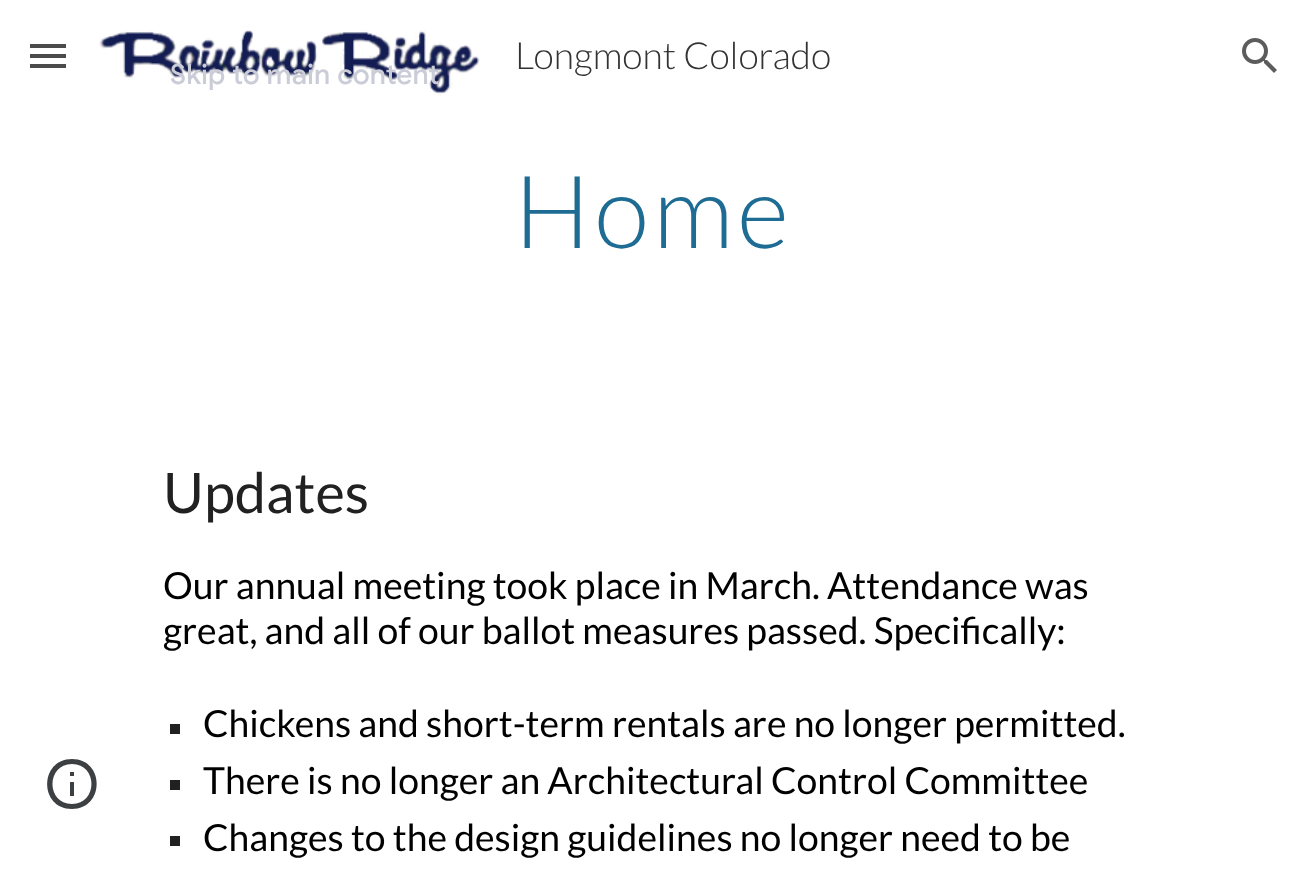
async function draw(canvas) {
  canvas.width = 1307
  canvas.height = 878
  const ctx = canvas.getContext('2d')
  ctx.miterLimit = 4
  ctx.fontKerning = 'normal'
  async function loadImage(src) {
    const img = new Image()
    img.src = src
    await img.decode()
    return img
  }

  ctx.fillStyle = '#fff'
  ctx.fillRect(0, 0, 1307, 878)
  ctx.fillStyle = '#4b4b4b'
  ctx.fillRect(30, 44, 36, 4)
  ctx.fillRect(30, 54, 36, 4)
  ctx.fillRect(30, 64, 36, 4)
  ctx.drawImage(await loadImage('image0.png'), 99, 30, 381, 66)
  ctx.font = '300 37.3px Lato'
  ctx.fillStyle = '#333'
  ctx.fillText('Longmont Colorado', 515, 69)
  ctx.drawImage(await loadImage('image1.png'), 1242, 38, 35, 35)
  ctx.fillStyle = '#3c4043'
  ctx.beginPath()
  ctx.moveTo(70, 796)
  ctx.lineTo(74, 796)
  ctx.lineTo(74, 782)
  ctx.lineTo(70, 782)
  ctx.closePath()
  ctx.moveTo(72, 759)
  ctx.bezierCurveTo(39, 759, 39, 809, 72, 809)
  ctx.bezierCurveTo(105, 809, 105, 759, 72, 759)
  ctx.closePath()
  ctx.moveTo(72, 804)
  ctx.bezierCurveTo(46, 804, 46, 764, 72, 764)
  ctx.bezierCurveTo(98, 764, 98, 804, 72, 804)
  ctx.closePath()
  ctx.moveTo(70, 776)
  ctx.lineTo(74, 776)
  ctx.lineTo(74, 772)
  ctx.lineTo(70, 772)
  ctx.closePath()
  ctx.fill()
  ctx.letterSpacing = '4px'
  ctx.font = '300 101px Lato'
  ctx.fillStyle = '#1e6c93'
  ctx.fillText('Home', 514, 248)
  ctx.letterSpacing = '0px'
  ctx.font = '56px Lato'
  ctx.fillStyle = '#212121'
  ctx.fillText('Updates', 163, 513)
  ctx.font = '37.3px Lato'
  ctx.fillStyle = '#000'
  ctx.fillText('Our annual meeting took place in March. Attendance was', 163, 599)
  ctx.fillText('great, and all of our ballot measures passed. Specifically:', 163, 644)
  ctx.fillStyle = '#212121'
  ctx.fillRect(170, 724, 10, 10)
  ctx.fillStyle = '#000'
  ctx.fillText('Chickens and short-term rentals are no longer permitted.', 203, 737)
  ctx.fillStyle = '#212121'
  ctx.fillRect(170, 780, 10, 10)
  ctx.fillStyle = '#000'
  ctx.fillText('There is no longer an Architectural Control Committee', 203, 794)
  ctx.fillStyle = '#212121'
  ctx.fillRect(170, 836, 10, 10)
  ctx.fillStyle = '#000'
  ctx.fillText('Changes to the design guidelines no longer need to be', 203, 851)
  ctx.letterSpacing = '0.25px'
  ctx.font = '500 28px Google Sans'
  ctx.fillStyle = '#caccd7'
  ctx.fillText('Skip to main content', 170, 84)
}

draw(document.querySelector('canvas'))
